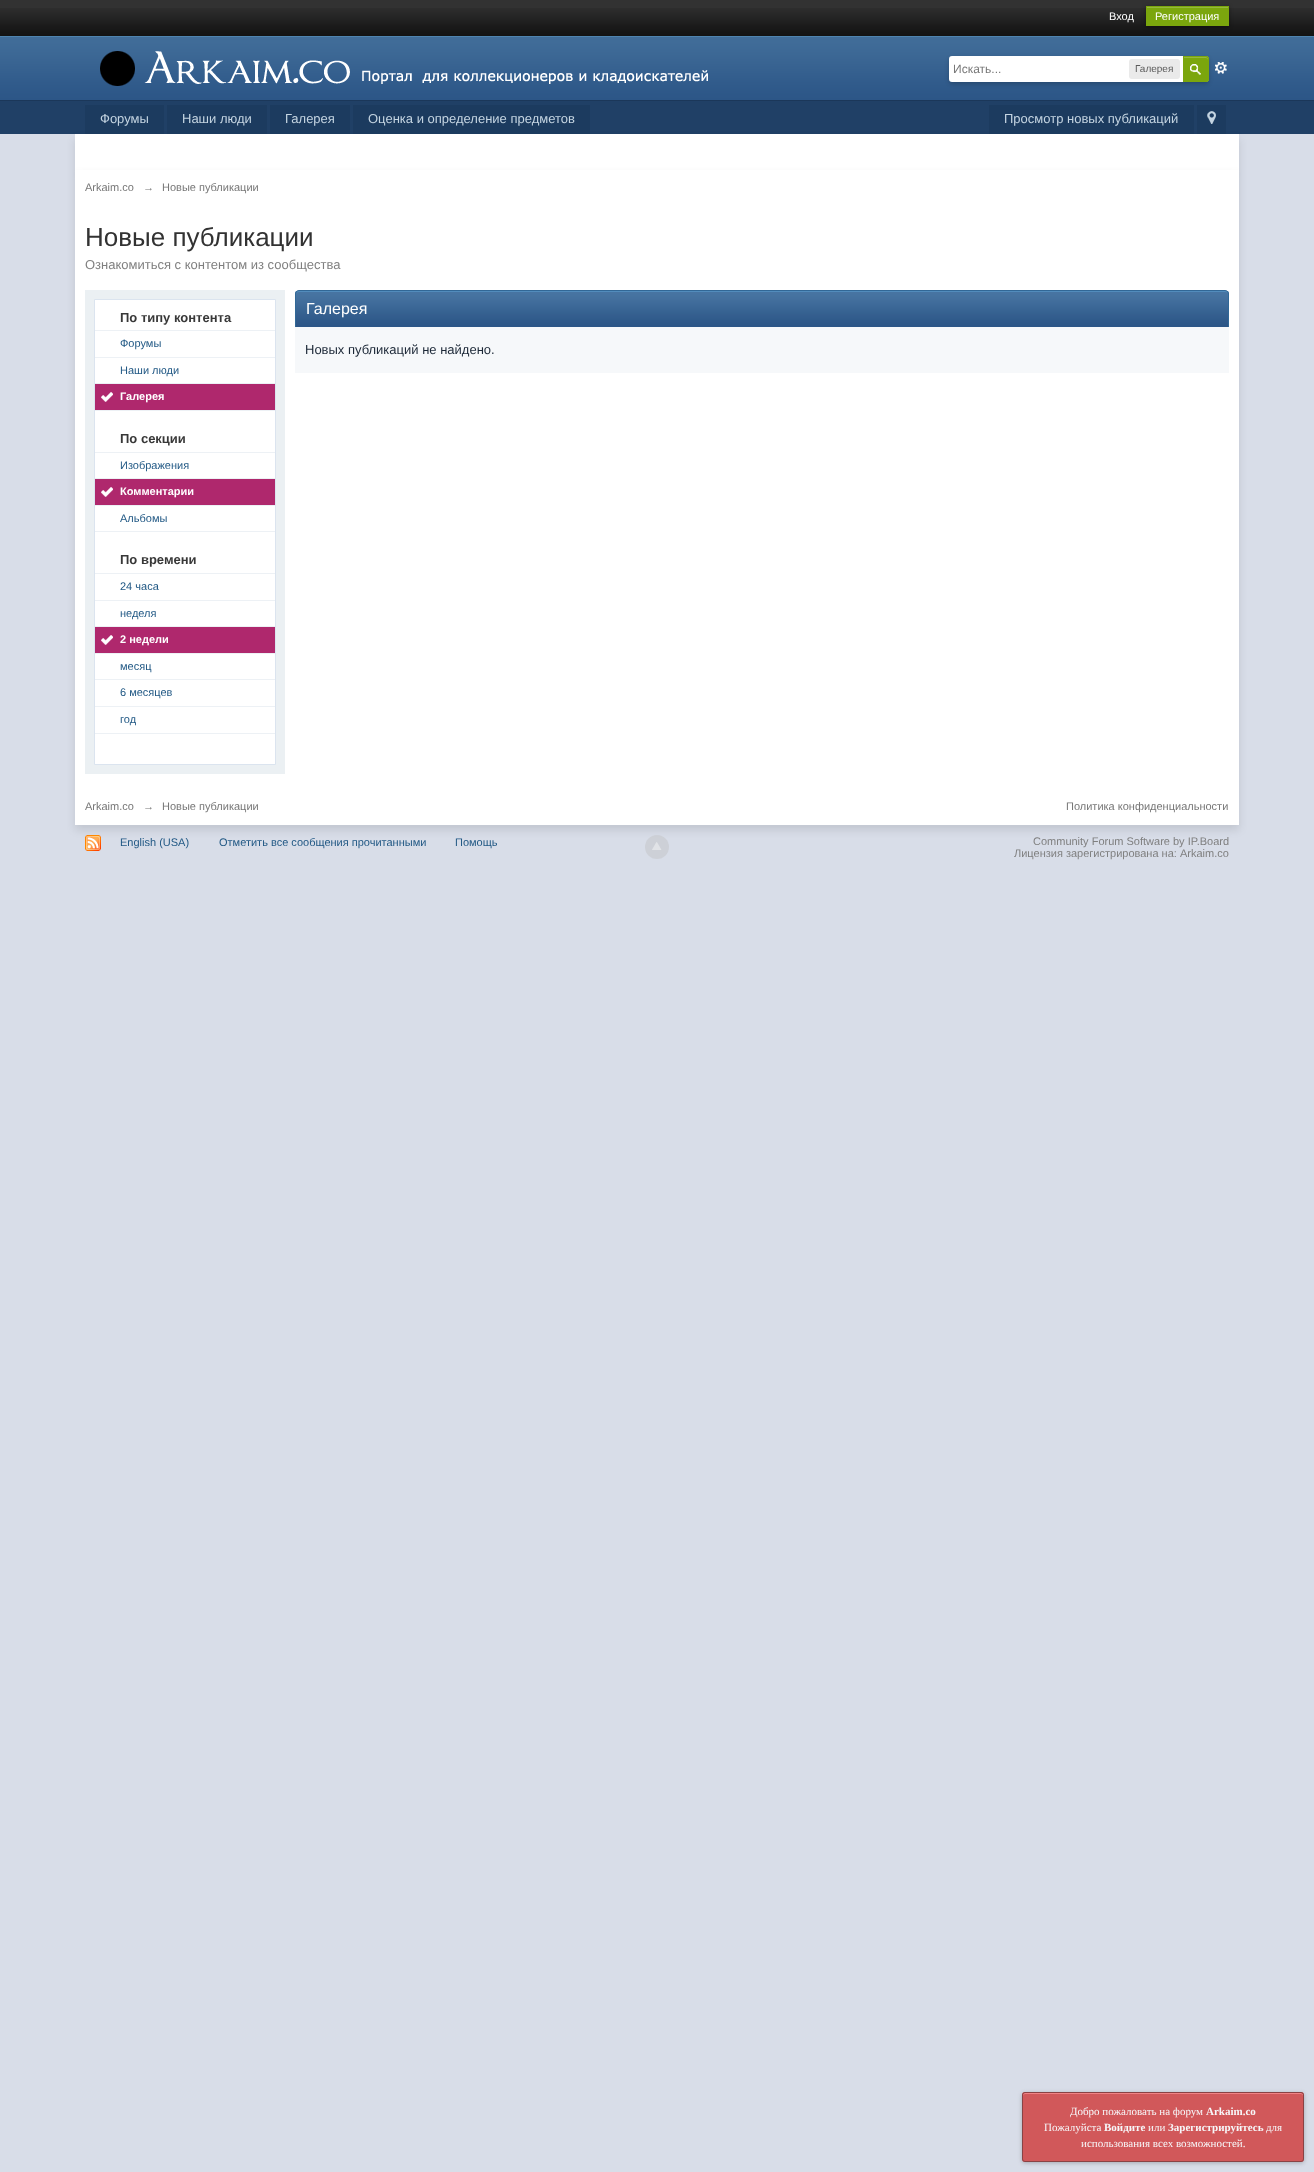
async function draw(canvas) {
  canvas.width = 1314
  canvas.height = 2172
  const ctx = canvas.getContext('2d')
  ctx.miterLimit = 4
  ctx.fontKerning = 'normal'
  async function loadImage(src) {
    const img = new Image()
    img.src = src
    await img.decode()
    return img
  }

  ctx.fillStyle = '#d8dde8'
  ctx.fillRect(0, 0, 1314, 2172)
  ctx.fillStyle = '#323232'
  ctx.fillRect(0, 0, 1314, 8)
  ctx.drawImage(await loadImage('image0.png'), 0, 8, 1314, 28)
  ctx.font = '11px Liberation Sans'
  ctx.fillStyle = '#fff'
  ctx.fillText('Вход', 1109, 20)
  ctx.fillStyle = '#00000066'
  ctx.filter = 'blur(2px)'
  ctx.beginPath()
  ctx.rect(1146, 7, 83, 20)
  ctx.fill()
  ctx.filter = 'none'
  ctx.fillStyle = '#7ba60d'
  ctx.fillRect(1146, 6, 83, 20)
  ctx.fillStyle = '#95b83d'
  ctx.fillRect(1147, 7, 81, 1)
  ctx.fillStyle = '#fff'
  ctx.fillText('Регистрация', 1155, 20)
  ctx.drawImage(await loadImage('image1.png'), 0, 36, 1314, 64)
  ctx.fillStyle = '#1b3759'
  ctx.fillRect(0, 100, 1314, 1)
  ctx.drawImage(await loadImage('image2.png'), 100, 51, 608, 35)
  ctx.drawImage(await loadImage('image4.png'), 1215, 62, 12, 12)
  ctx.fillStyle = '#00000033'
  ctx.filter = 'blur(2px)'
  ctx.beginPath()
  ctx.roundRect(949, 58, 260, 26, 4)
  ctx.fill()
  ctx.filter = 'none'
  ctx.fillStyle = '#fff'
  ctx.beginPath()
  ctx.roundRect(949, 56, 260, 26, [3, 4, 4, 3])
  ctx.fill()
  ctx.font = '12px Liberation Sans'
  ctx.fillStyle = '#777'
  ctx.fillText('Искать...', 953, 73)
  ctx.fillStyle = '#eaeaea'
  ctx.beginPath()
  ctx.roundRect(1129, 59, 51, 20, 3)
  ctx.fill()
  ctx.font = '10px Liberation Sans'
  ctx.fillStyle = '#5a5a5a'
  ctx.fillText('Галерея', 1135, 72)
  ctx.fillStyle = '#7ba60d'
  ctx.beginPath()
  ctx.roundRect(1183, 56, 26, 26, [0, 3, 3, 0])
  ctx.fill()
  ctx.drawImage(await loadImage('image3.png'), 1190, 64, 11, 11)
  ctx.fillStyle = '#95b83d'
  ctx.beginPath()
  ctx.moveTo(1184, 58)
  ctx.lineTo(1206, 58)
  ctx.bezierCurveTo(1207, 58, 1208, 59, 1208, 60)
  ctx.lineTo(1208, 59)
  ctx.bezierCurveTo(1208, 58, 1207, 57, 1206, 57)
  ctx.lineTo(1184, 57)
  ctx.closePath()
  ctx.fill()
  ctx.beginPath()
  ctx.roundRect(1183.5, 56.5, 25, 25, [0, 2.5, 2.5, 0])
  ctx.strokeStyle = '#7ba60d'
  ctx.stroke()
  ctx.fillStyle = '#204066'
  ctx.fillRect(0, 101, 1314, 33)
  ctx.fillStyle = '#0000001a'
  ctx.filter = 'blur(4.5px)'
  ctx.beginPath()
  ctx.rect(75, 139, 1164, 36)
  ctx.fill()
  ctx.filter = 'none'
  ctx.fillStyle = '#1c3b5f'
  ctx.fillRect(85, 105, 79, 29)
  ctx.font = '13px Liberation Sans'
  ctx.fillStyle = '#c5d5e2'
  ctx.fillText('Форумы', 100, 123)
  ctx.fillStyle = '#1c3b5f'
  ctx.fillRect(167, 105, 100, 29)
  ctx.fillStyle = '#c5d5e2'
  ctx.fillText('Наши люди', 182, 123)
  ctx.fillStyle = '#1c3b5f'
  ctx.fillRect(270, 105, 80, 29)
  ctx.fillStyle = '#c5d5e2'
  ctx.fillText('Галерея', 285, 123)
  ctx.fillStyle = '#1c3b5f'
  ctx.fillRect(353, 105, 237, 29)
  ctx.fillStyle = '#c5d5e2'
  ctx.fillText('Оценка и определение предметов', 368, 123)
  ctx.fillStyle = '#1c3b5f'
  ctx.fillRect(989, 105, 205, 29)
  ctx.fillStyle = '#c5d5e2'
  ctx.fillText('Просмотр новых публикаций', 1004, 123)
  ctx.fillStyle = '#1c3b5f'
  ctx.fillRect(1197, 105, 29, 29)
  ctx.drawImage(await loadImage('image5.png'), 1207, 111, 9, 13)
  ctx.fillStyle = '#fff'
  ctx.fillRect(75, 134, 1164, 36)
  ctx.fillStyle = '#0000001a'
  ctx.filter = 'blur(4.5px)'
  ctx.beginPath()
  ctx.rect(75, 175, 1164, 655)
  ctx.fill()
  ctx.filter = 'none'
  ctx.fillStyle = '#fff'
  ctx.fillRect(75, 170, 1164, 655)
  ctx.font = '11px Liberation Sans'
  ctx.fillStyle = '#777'
  ctx.fillText('Arkaim.co', 85, 191)
  ctx.fillText('→', 143, 191)
  ctx.fillText('Новые публикации', 162, 191)
  ctx.font = '26px Liberation Sans'
  ctx.fillStyle = '#323232'
  ctx.fillText('Новые публикации', 85, 246)
  ctx.font = '13px Liberation Sans'
  ctx.fillStyle = '#7f7f7f'
  ctx.fillText('Ознакомиться с контентом из сообщества', 85, 269)
  ctx.fillStyle = '#ebf0f3'
  ctx.fillRect(85, 290, 200, 484)
  ctx.fillStyle = '#fff'
  ctx.beginPath()
  ctx.rect(94.5, 299.5, 181, 465)
  ctx.fill()
  ctx.strokeStyle = '#dbe4ef'
  ctx.stroke()
  ctx.font = 'bold 13px Liberation Sans'
  ctx.fillStyle = '#383838'
  ctx.fillText('По типу контента', 120, 322)
  ctx.fillStyle = '#edf1f5'
  ctx.fillRect(95, 330, 180, 1)
  ctx.fillRect(95, 357, 180, 1)
  ctx.font = '11px Liberation Sans'
  ctx.fillStyle = '#225985'
  ctx.fillText('Форумы', 120, 347)
  ctx.fillStyle = '#edf1f5'
  ctx.fillRect(95, 383, 180, 1)
  ctx.fillStyle = '#225985'
  ctx.fillText('Наши люди', 120, 374)
  ctx.fillStyle = '#edf1f5'
  ctx.fillRect(95, 410, 180, 1)
  ctx.fillStyle = '#af286d'
  ctx.fillRect(95, 384, 180, 26)
  ctx.drawImage(await loadImage('image6.png'), 101, 392, 12, 10)
  ctx.font = 'bold 11px Liberation Sans'
  ctx.fillStyle = '#fff'
  ctx.fillText('Галерея', 120, 400)
  ctx.font = 'bold 13px Liberation Sans'
  ctx.fillStyle = '#383838'
  ctx.fillText('По секции', 120, 443)
  ctx.fillStyle = '#edf1f5'
  ctx.fillRect(95, 452, 180, 1)
  ctx.fillRect(95, 478, 180, 1)
  ctx.font = '11px Liberation Sans'
  ctx.fillStyle = '#225985'
  ctx.fillText('Изображения', 120, 469)
  ctx.fillStyle = '#edf1f5'
  ctx.fillRect(95, 505, 180, 1)
  ctx.fillStyle = '#af286d'
  ctx.fillRect(95, 479, 180, 26)
  ctx.drawImage(await loadImage('image6.png'), 101, 487, 12, 10)
  ctx.font = 'bold 11px Liberation Sans'
  ctx.fillStyle = '#fff'
  ctx.fillText('Комментарии', 120, 495)
  ctx.fillStyle = '#edf1f5'
  ctx.fillRect(95, 531, 180, 1)
  ctx.font = '11px Liberation Sans'
  ctx.fillStyle = '#225985'
  ctx.fillText('Альбомы', 120, 522)
  ctx.font = 'bold 13px Liberation Sans'
  ctx.fillStyle = '#383838'
  ctx.fillText('По времени', 120, 564)
  ctx.fillStyle = '#edf1f5'
  ctx.fillRect(95, 573, 180, 1)
  ctx.fillRect(95, 600, 180, 1)
  ctx.font = '11px Liberation Sans'
  ctx.fillStyle = '#225985'
  ctx.fillText('24 часа', 120, 590)
  ctx.fillStyle = '#edf1f5'
  ctx.fillRect(95, 626, 180, 1)
  ctx.fillStyle = '#225985'
  ctx.fillText('неделя', 120, 617)
  ctx.fillStyle = '#edf1f5'
  ctx.fillRect(95, 653, 180, 1)
  ctx.fillStyle = '#af286d'
  ctx.fillRect(95, 627, 180, 26)
  ctx.drawImage(await loadImage('image6.png'), 101, 635, 12, 10)
  ctx.font = 'bold 11px Liberation Sans'
  ctx.fillStyle = '#fff'
  ctx.fillText('2 недели', 120, 643)
  ctx.fillStyle = '#edf1f5'
  ctx.fillRect(95, 679, 180, 1)
  ctx.font = '11px Liberation Sans'
  ctx.fillStyle = '#225985'
  ctx.fillText('месяц', 120, 670)
  ctx.fillStyle = '#edf1f5'
  ctx.fillRect(95, 706, 180, 1)
  ctx.fillStyle = '#225985'
  ctx.fillText('6 месяцев', 120, 696)
  ctx.fillStyle = '#edf1f5'
  ctx.fillRect(95, 733, 180, 1)
  ctx.fillStyle = '#225985'
  ctx.fillText('год', 120, 723)
  ctx.fillStyle = '#2c5687'
  ctx.fillRect(296, 326, 932, 1)
  ctx.drawImage(await loadImage('image7.png'), 295, 291, 934, 35)
  ctx.fillStyle = '#528cbc'
  ctx.beginPath()
  ctx.moveTo(299, 292)
  ctx.lineTo(1225, 292)
  ctx.bezierCurveTo(1227, 292, 1228, 293, 1228, 295)
  ctx.bezierCurveTo(1228, 293, 1227, 291, 1225, 291)
  ctx.lineTo(299, 291)
  ctx.bezierCurveTo(297, 291, 296, 293, 296, 295)
  ctx.bezierCurveTo(296, 293, 297, 292, 299, 292)
  ctx.closePath()
  ctx.fill()
  ctx.fillStyle = '#316897'
  ctx.beginPath()
  ctx.moveTo(299, 290)
  ctx.lineTo(1225, 290)
  ctx.bezierCurveTo(1227, 290, 1229, 292, 1229, 294)
  ctx.lineTo(1229, 327)
  ctx.lineTo(295, 327)
  ctx.lineTo(295, 294)
  ctx.bezierCurveTo(295, 292, 297, 290, 299, 290)
  ctx.closePath()
  ctx.moveTo(299, 291)
  ctx.lineTo(1225, 291)
  ctx.bezierCurveTo(1227, 291, 1228, 292, 1228, 294)
  ctx.lineTo(1228, 327)
  ctx.lineTo(296, 327)
  ctx.lineTo(296, 294)
  ctx.bezierCurveTo(296, 292, 297, 291, 299, 291)
  ctx.closePath()
  ctx.fill('evenodd')
  ctx.font = '16px Liberation Sans'
  ctx.fillStyle = '#fff'
  ctx.fillText('Галерея', 306, 314)
  ctx.fillStyle = '#f6f8fa'
  ctx.fillRect(295, 327, 934, 46)
  ctx.font = '13px Liberation Sans'
  ctx.fillStyle = '#1c2837'
  ctx.fillText('Новых публикаций не найдено.', 305, 354)
  ctx.font = '11px Liberation Sans'
  ctx.fillStyle = '#777'
  ctx.fillText('Arkaim.co', 85, 810)
  ctx.fillText('→', 143, 810)
  ctx.fillText('Новые публикации', 162, 810)
  ctx.fillText('Политика конфиденциальности', 1066, 810)
  ctx.drawImage(await loadImage('image8.png'), 85, 835, 16, 16)
  ctx.fillStyle = '#225985'
  ctx.fillText('English (USA)', 120, 846)
  ctx.fillText('Отметить все сообщения прочитанными', 219, 846)
  ctx.fillText('Помощь', 455, 846)
  ctx.fillStyle = '#bdbdbd66'
  ctx.beginPath()
  ctx.arc(657, 847, 12, 0, 2 * Math.PI)
  ctx.fill()
  ctx.drawImage(await loadImage('image9.png'), 652, 842, 10, 8)
  ctx.fillStyle = '#7f7f7f'
  ctx.fillText('Community Forum Software by IP.Board', 1033, 845)
  ctx.fillText('Лицензия зарегистрирована на: Arkaim.co', 1014, 857)
  ctx.fillStyle = '#2b2c2e4d'
  ctx.filter = 'blur(2px)'
  ctx.beginPath()
  ctx.roundRect(1022, 2093, 282, 70, 3)
  ctx.fill()
  ctx.filter = 'none'
  ctx.fillStyle = '#d1585a'
  ctx.beginPath()
  ctx.roundRect(1022, 2092, 282, 70, 3)
  ctx.fill()
  ctx.fillStyle = '#f08385'
  ctx.beginPath()
  ctx.moveTo(1025, 2094)
  ctx.lineTo(1301, 2094)
  ctx.bezierCurveTo(1302, 2094, 1303, 2095, 1303, 2096)
  ctx.lineTo(1303, 2094)
  ctx.lineTo(1301, 2093)
  ctx.lineTo(1025, 2093)
  ctx.bezierCurveTo(1023, 2093, 1023, 2095, 1023, 2096)
  ctx.bezierCurveTo(1023, 2095, 1024, 2094, 1025, 2094)
  ctx.closePath()
  ctx.fill()
  ctx.beginPath()
  ctx.roundRect(1022.5, 2092.5, 281, 69, 2.5)
  ctx.strokeStyle = '#8a4244'
  ctx.stroke()
  ctx.font = '11px Liberation Serif'
  ctx.fillStyle = '#f7f8fa'
  ctx.fillText('Добро пожаловать на форум', 1070, 2115)
  ctx.font = 'bold 11px Liberation Serif'
  ctx.fillText('Arkaim.co', 1206, 2115)
  ctx.font = '11px Liberation Serif'
  ctx.fillText('Пожалуйста', 1044, 2131)
  ctx.font = 'bold 11px Liberation Serif'
  ctx.fillText('Войдите', 1104, 2131)
  ctx.font = '11px Liberation Serif'
  ctx.fillText('или', 1148, 2131)
  ctx.font = 'bold 11px Liberation Serif'
  ctx.fillText('Зарегистрируйтесь', 1168, 2131)
  ctx.font = '11px Liberation Serif'
  ctx.fillText('для', 1266, 2131)
  ctx.fillText('использования всех возможностей.', 1081, 2147)
}

draw(document.querySelector('canvas'))
